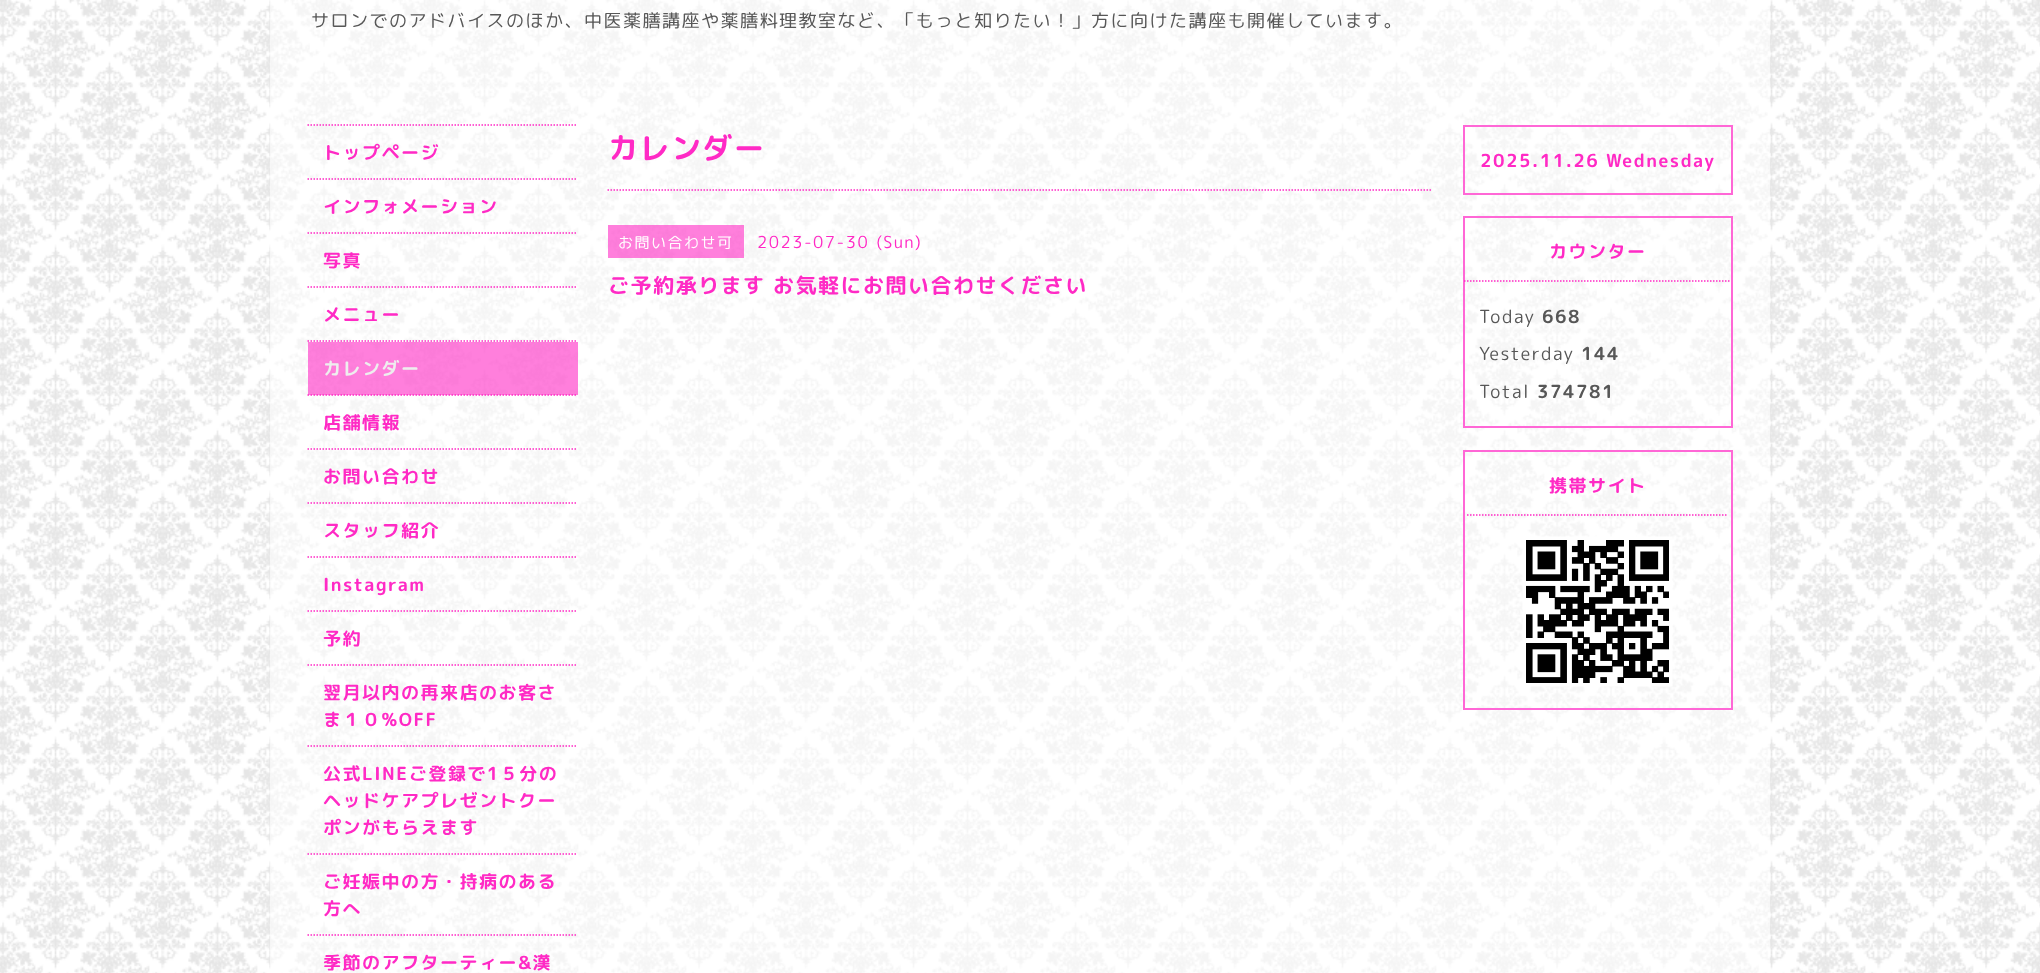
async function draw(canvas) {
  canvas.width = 2040
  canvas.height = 973
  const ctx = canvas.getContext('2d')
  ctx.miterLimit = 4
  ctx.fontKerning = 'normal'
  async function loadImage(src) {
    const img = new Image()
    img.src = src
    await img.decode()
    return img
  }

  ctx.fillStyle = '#fff'
  ctx.fillRect(0, 0, 2040, 973)
  ctx.drawImage(await loadImage('image0.png'), 0, 0, 2040, 973)
  ctx.fillStyle = '#ffffff99'
  ctx.fillRect(270, 0, 1500, 973)
  ctx.letterSpacing = '1.5px'
  ctx.font = '18px "Rounded Mplus 1c"'
  ctx.fillStyle = '#575757'
  ctx.fillText('サロンでのアドバイスのほか、中医薬膳講座や薬膳料理教室など、「もっと知りたい！」方に向けた講座も開催しています。', 311, 27)
  ctx.beginPath()
  ctx.moveTo(307.5, 125)
  ctx.lineTo(577.5, 125)
  ctx.strokeStyle = '#ff2ac5'
  ctx.lineWidth = 1.5
  ctx.setLineDash([1.5, 1.5])
  ctx.stroke()
  ctx.beginPath()
  ctx.moveTo(307.5, 179)
  ctx.lineTo(577.5, 179)
  ctx.stroke()
  ctx.font = 'bold 18px "Rounded Mplus 1c Bold"'
  ctx.fillStyle = '#ff2ac5'
  ctx.fillText('トップページ', 323, 159)
  ctx.beginPath()
  ctx.moveTo(307.5, 233)
  ctx.lineTo(577.5, 233)
  ctx.stroke()
  ctx.fillText('インフォメーション', 323, 213)
  ctx.beginPath()
  ctx.moveTo(307.5, 287)
  ctx.lineTo(577.5, 287)
  ctx.stroke()
  ctx.fillText('写真', 323, 267)
  ctx.beginPath()
  ctx.moveTo(307.5, 341)
  ctx.lineTo(577.5, 341)
  ctx.stroke()
  ctx.fillText('メニュー', 323, 321)
  ctx.beginPath()
  ctx.moveTo(307.5, 395)
  ctx.lineTo(577.5, 395)
  ctx.stroke()
  ctx.fillStyle = '#ff2ac599'
  ctx.fillRect(308, 342, 270, 53)
  ctx.fillStyle = '#eee'
  ctx.fillText('カレンダー', 323, 375)
  ctx.beginPath()
  ctx.moveTo(307.5, 449)
  ctx.lineTo(577.5, 449)
  ctx.stroke()
  ctx.fillStyle = '#ff2ac5'
  ctx.fillText('店舗情報', 323, 429)
  ctx.beginPath()
  ctx.moveTo(307.5, 503)
  ctx.lineTo(577.5, 503)
  ctx.stroke()
  ctx.fillText('お問い合わせ', 323, 483)
  ctx.beginPath()
  ctx.moveTo(307.5, 557)
  ctx.lineTo(577.5, 557)
  ctx.stroke()
  ctx.fillText('スタッフ紹介', 323, 537)
  ctx.beginPath()
  ctx.moveTo(307.5, 611)
  ctx.lineTo(577.5, 611)
  ctx.stroke()
  ctx.fillText('Instagram', 323, 591)
  ctx.beginPath()
  ctx.moveTo(307.5, 665)
  ctx.lineTo(577.5, 665)
  ctx.stroke()
  ctx.fillText('予約', 323, 645)
  ctx.beginPath()
  ctx.moveTo(307.5, 746)
  ctx.lineTo(577.5, 746)
  ctx.stroke()
  ctx.fillText('翌月以内の再来店のお客さ', 323, 699)
  ctx.fillText('ま１０%OFF', 323, 726)
  ctx.beginPath()
  ctx.moveTo(307.5, 854)
  ctx.lineTo(577.5, 854)
  ctx.stroke()
  ctx.fillText('公式LINEご登録で1５分の', 323, 780)
  ctx.fillText('ヘッドケアプレゼントクー', 323, 807)
  ctx.fillText('ポンがもらえます', 323, 834)
  ctx.beginPath()
  ctx.moveTo(307.5, 935)
  ctx.lineTo(577.5, 935)
  ctx.stroke()
  ctx.fillText('ご妊娠中の方・持病のある', 323, 888)
  ctx.fillText('方へ', 323, 915)
  ctx.fillText('季節のアフターティー&漢', 323, 969)
  ctx.font = 'bold 30px "Rounded Mplus 1c Bold"'
  ctx.fillText('カレンダー', 608, 159)
  ctx.beginPath()
  ctx.moveTo(607.5, 190)
  ctx.lineTo(1432.5, 190)
  ctx.stroke()
  ctx.fillStyle = '#ff2ac599'
  ctx.fillRect(608, 225, 136, 33)
  ctx.font = '15px "Rounded Mplus 1c"'
  ctx.fillStyle = '#fff'
  ctx.fillText('お問い合わせ可', 618, 248)
  ctx.wordSpacing = '1px'
  ctx.font = '16.5px "Rounded Mplus 1c"'
  ctx.fillStyle = '#ff2ac5'
  ctx.fillText('2023-07-30 (Sun)', 757, 248)
  ctx.wordSpacing = '0px'
  ctx.font = 'bold 21px "Rounded Mplus 1c Bold"'
  ctx.fillText('ご予約承ります お気軽にお問い合わせください', 608, 293)
  ctx.strokeStyle = '#ff67d6'
  ctx.lineWidth = 2
  ctx.setLineDash([])
  ctx.strokeRect(1464, 126, 268, 68)
  ctx.font = 'bold 18px "Rounded Mplus 1c Bold"'
  ctx.fillText('2025.11.26 Wednesday', 1480, 167)
  ctx.strokeRect(1464, 217, 268, 210)
  ctx.beginPath()
  ctx.moveTo(1464, 281)
  ctx.lineTo(1731, 281)
  ctx.strokeStyle = '#ff2ac5'
  ctx.lineWidth = 1.5
  ctx.setLineDash([1.5, 1.5])
  ctx.stroke()
  ctx.fillText('カウンター', 1549, 258)
  ctx.font = '18px "Rounded Mplus 1c"'
  ctx.fillStyle = '#575757'
  ctx.fillText('Today', 1479, 323)
  ctx.font = 'bold 18px "Rounded Mplus 1c Bold"'
  ctx.fillText('668', 1542, 323)
  ctx.font = '18px "Rounded Mplus 1c"'
  ctx.fillText('Yesterday', 1479, 360)
  ctx.font = 'bold 18px "Rounded Mplus 1c Bold"'
  ctx.fillText('144', 1581, 360)
  ctx.font = '18px "Rounded Mplus 1c"'
  ctx.fillText('Total', 1479, 398)
  ctx.font = 'bold 18px "Rounded Mplus 1c Bold"'
  ctx.fillText('374781', 1537, 398)
  ctx.strokeStyle = '#ff67d6'
  ctx.lineWidth = 2
  ctx.setLineDash([])
  ctx.strokeRect(1464, 451, 268, 258)
  ctx.beginPath()
  ctx.moveTo(1467, 515)
  ctx.lineTo(1728, 515)
  ctx.strokeStyle = '#ff2ac5'
  ctx.lineWidth = 1.5
  ctx.setLineDash([1.5, 1.5])
  ctx.stroke()
  ctx.fillStyle = '#ff2ac5'
  ctx.fillText('携帯サイト', 1549, 492)
  ctx.drawImage(await loadImage('image1.png'), 1522, 536, 151, 151)
}

draw(document.querySelector('canvas'))
